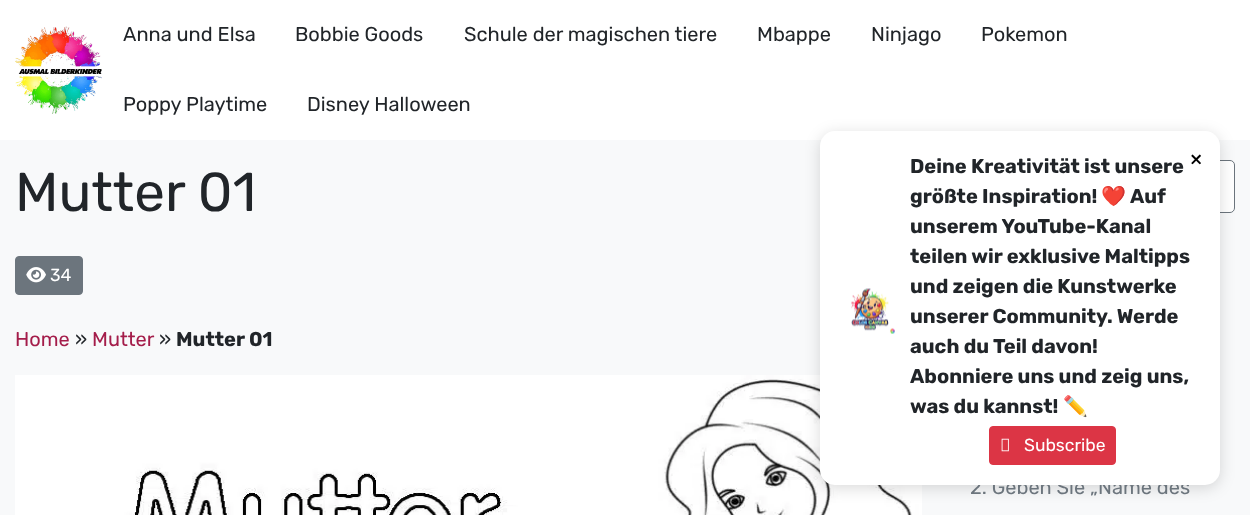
async function draw(canvas) {
  canvas.width = 1250
  canvas.height = 515
  const ctx = canvas.getContext('2d')
  ctx.miterLimit = 4
  ctx.fontKerning = 'normal'
  async function loadImage(src) {
    const img = new Image()
    img.src = src
    await img.decode()
    return img
  }

  ctx.fillStyle = '#f8f9fa'
  ctx.fillRect(0, 0, 1250, 515)
  ctx.fillStyle = '#fff'
  ctx.fillRect(0, 0, 1250, 140)
  ctx.drawImage(await loadImage('image0.png'), 15, 26, 87, 88)
  ctx.font = '20px Rubik'
  ctx.fillStyle = '#212529'
  ctx.fillText('Anna und Elsa', 123, 41)
  ctx.fillText('Bobbie Goods', 295, 41)
  ctx.fillText('Schule der magischen tiere', 464, 41)
  ctx.fillText('Mbappe', 757, 41)
  ctx.fillText('Ninjago', 871, 41)
  ctx.fillText('Pokemon', 981, 41)
  ctx.fillText('Poppy Playtime', 123, 111)
  ctx.fillText('Disney Halloween', 307, 111)
  ctx.drawImage(await loadImage('image4.png'), 15, 375, 907, 140)
  ctx.fillStyle = '#fff'
  ctx.beginPath()
  ctx.roundRect(953.5, 160.5, 281, 52, 4.5)
  ctx.fill()
  ctx.strokeStyle = '#6c757d'
  ctx.stroke()
  ctx.fillStyle = '#00000026'
  ctx.filter = 'blur(7.5px)'
  ctx.beginPath()
  ctx.roundRect(820, 134, 400, 354, 15)
  ctx.fill()
  ctx.filter = 'none'
  ctx.fillStyle = '#6c757d'
  ctx.fillText('2. Geben Sie „Name des', 970, 494)
  ctx.fillStyle = '#fff'
  ctx.beginPath()
  ctx.roundRect(820, 131, 400, 354, 15)
  ctx.fill()
  ctx.drawImage(await loadImage('image1.png'), 851, 288, 44, 46)
  ctx.font = 'bold 20px Rubik'
  ctx.fillStyle = '#212529'
  ctx.fillText('Deine Kreativität ist unsere', 910, 173)
  ctx.fillText('größte Inspiration!', 910, 203)
  ctx.font = 'bold 20px Noto Color Emoji'
  ctx.fillText('❤️', 1101, 203)
  ctx.font = 'bold 20px Rubik'
  ctx.fillText('Auf', 1130, 203)
  ctx.fillText('unserem YouTube-Kanal', 910, 233)
  ctx.fillText('teilen wir exklusive Maltipps', 910, 263)
  ctx.fillText('und zeigen die Kunstwerke', 910, 293)
  ctx.fillText('unserer Community. Werde', 910, 323)
  ctx.fillText('auch du Teil davon!', 910, 353)
  ctx.fillText('Abonniere uns und zeig uns,', 910, 383)
  ctx.fillText('was du kannst!', 910, 413)
  ctx.font = 'bold 20px Noto Color Emoji'
  ctx.fillText('✏️', 1063, 413)
  ctx.fillStyle = '#dc3545'
  ctx.beginPath()
  ctx.roundRect(989.5, 426.5, 126, 38, 3.5)
  ctx.fill()
  ctx.strokeStyle = '#dc3545'
  ctx.stroke()
  ctx.drawImage(await loadImage('image2.png'), 1001, 438, 8, 14)
  ctx.font = '17.5px Rubik'
  ctx.fillStyle = '#fff'
  ctx.fillText('Subscribe', 1024, 451)
  ctx.font = '22px Rubik'
  ctx.fillStyle = '#000'
  ctx.fillText('×', 1190, 166)
  ctx.font = '54.75px Rubik'
  ctx.fillStyle = '#212529'
  ctx.fillText('Mutter 01', 15, 211)
  ctx.fillStyle = '#6c757d'
  ctx.beginPath()
  ctx.roundRect(15.5, 256.5, 67, 38, 3.5)
  ctx.fill()
  ctx.strokeStyle = '#6c757d'
  ctx.stroke()
  ctx.drawImage(await loadImage('image3.png'), 26, 267, 20, 16)
  ctx.font = '17.5px Rubik'
  ctx.fillStyle = '#fff'
  ctx.fillText('34', 50, 281)
  ctx.font = '20px Rubik'
  ctx.fillStyle = '#a41d4a'
  ctx.fillText('Home', 15, 346)
  ctx.fillStyle = '#212529'
  ctx.fillText('»', 75, 346)
  ctx.fillStyle = '#a41d4a'
  ctx.fillText('Mutter', 92, 346)
  ctx.fillStyle = '#212529'
  ctx.fillText('»', 159, 346)
  ctx.font = 'bold 20px Rubik'
  ctx.fillText('Mutter 01', 176, 346)
}

draw(document.querySelector('canvas'))
